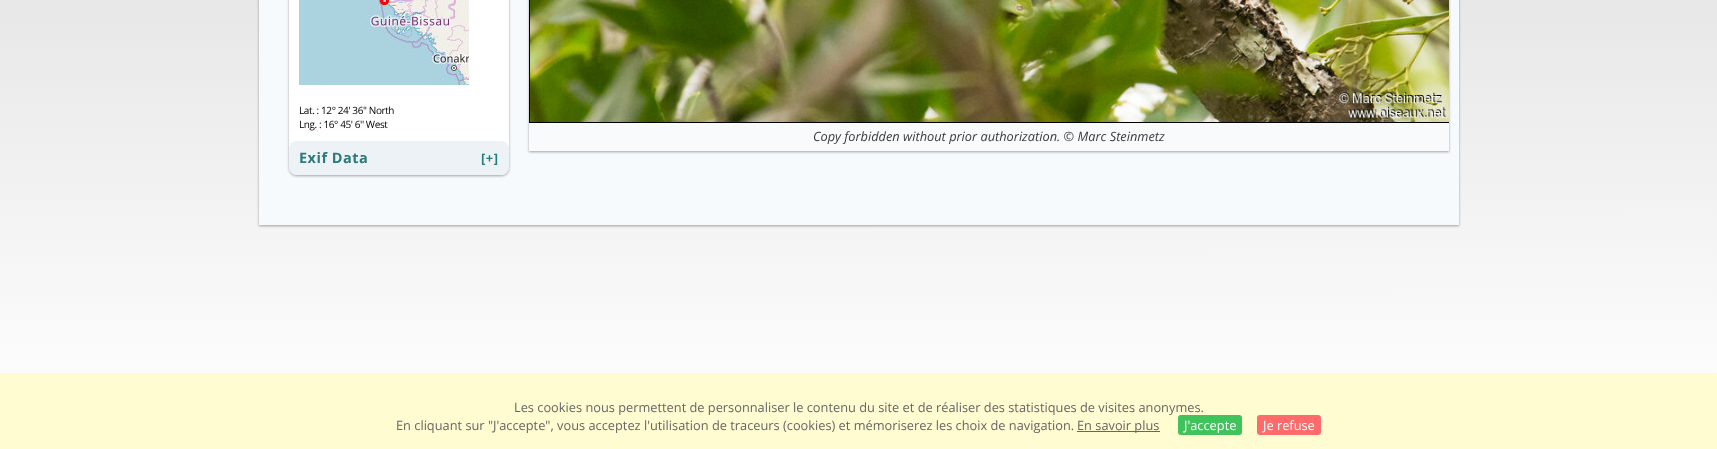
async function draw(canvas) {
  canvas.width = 1717
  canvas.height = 449
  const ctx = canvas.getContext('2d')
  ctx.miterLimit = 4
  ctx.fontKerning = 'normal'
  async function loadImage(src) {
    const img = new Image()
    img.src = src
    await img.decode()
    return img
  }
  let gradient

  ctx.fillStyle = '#fff'
  ctx.fillRect(0, 0, 1717, 449)
  gradient = ctx.createLinearGradient(858, -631, 859, 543)
  gradient.addColorStop(0, '#bbb')
  gradient.addColorStop(0.21, '#bbb')
  gradient.addColorStop(0.38, '#ddd')
  gradient.addColorStop(0.9, '#fff')
  gradient.addColorStop(1, '#fff')
  ctx.fillStyle = gradient
  ctx.fillRect(0, 0, 1717, 373)
  ctx.fillStyle = '#0000003d'
  ctx.filter = 'blur(1px)'
  ctx.beginPath()
  ctx.rect(259, -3, 1200, 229)
  ctx.fill()
  ctx.filter = 'none'
  ctx.fillStyle = '#0000001f'
  ctx.filter = 'blur(1.5px)'
  ctx.beginPath()
  ctx.rect(259, -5, 1200, 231)
  ctx.fill()
  ctx.filter = 'none'
  ctx.fillStyle = '#f7fafc'
  ctx.fillRect(259, 0, 1200, 225)
  ctx.fillStyle = '#0000003d'
  ctx.filter = 'blur(1px)'
  ctx.beginPath()
  ctx.roundRect(289, -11, 220, 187, 8)
  ctx.fill()
  ctx.filter = 'none'
  ctx.fillStyle = '#0000001f'
  ctx.filter = 'blur(1.5px)'
  ctx.beginPath()
  ctx.roundRect(289, -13, 220, 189, 8)
  ctx.fill()
  ctx.filter = 'none'
  ctx.fillStyle = '#fff'
  ctx.beginPath()
  ctx.roundRect(289, -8, 220, 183, 8)
  ctx.fill()
  ctx.drawImage(await loadImage('image0.png'), 299, 0, 170, 85)
  ctx.letterSpacing = '-0.4px'
  ctx.font = '10px Open Sans'
  ctx.fillStyle = '#000'
  ctx.fillText('Lat. : 12° 24\' 36\'\' North', 299, 114)
  ctx.fillText('Lng. : 16° 45\' 6\'\' West', 299, 128)
  ctx.fillStyle = '#edf2f7'
  ctx.beginPath()
  ctx.roundRect(289, 141, 220, 34, 8)
  ctx.fill()
  ctx.letterSpacing = '0.5px'
  ctx.font = 'bold 14.5px Open Sans'
  ctx.fillStyle = '#2c7a7b'
  ctx.fillText('Exif Data', 299, 163)
  ctx.font = 'bold 13px Open Sans'
  ctx.fillText('[+]', 481, 163)
  ctx.fillStyle = '#0000003d'
  ctx.filter = 'blur(1px)'
  ctx.beginPath()
  ctx.rect(529, -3, 920, 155)
  ctx.fill()
  ctx.filter = 'none'
  ctx.fillStyle = '#0000001f'
  ctx.filter = 'blur(1.5px)'
  ctx.beginPath()
  ctx.rect(529, -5, 920, 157)
  ctx.fill()
  ctx.filter = 'none'
  ctx.save()
  ctx.beginPath()
  ctx.rect(529, 0, 920, 151)
  ctx.clip()
  ctx.strokeStyle = '#000'
  ctx.strokeRect(529.5, -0.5, 921, 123)
  ctx.restore()
  ctx.drawImage(await loadImage('image1.png'), 530, 0, 919, 122)
  ctx.fillStyle = '#f9fafb'
  ctx.fillRect(529, 123, 920, 28)
  ctx.letterSpacing = '0px'
  ctx.font = 'italic 12.8px Open Sans'
  ctx.fillStyle = '#3d3d3d'
  ctx.fillText('Copy forbidden without prior authorization. © Marc Steinmetz', 813, 141)
  ctx.fillStyle = '#fffcd1'
  ctx.fillRect(0, 373, 1717, 76)
  ctx.font = '12.8px Open Sans'
  ctx.fillStyle = '#666'
  ctx.fillText('Les cookies nous permettent de personnaliser le contenu du site et de réaliser des statistiques de visites anonymes.', 514, 412)
  ctx.fillText('En cliquant sur "J\'accepte", vous acceptez l\'utilisation de traceurs (cookies) et mémoriserez les choix de navigation.', 396, 430)
  ctx.fillRect(1077, 431, 83, 1)
  ctx.fillText('En savoir plus', 1077, 430)
  ctx.fillStyle = '#3fc35a'
  ctx.beginPath()
  ctx.roundRect(1178, 415, 64, 20, 3)
  ctx.fill()
  ctx.fillStyle = '#fff'
  ctx.fillText('J\'accepte', 1184, 430)
  ctx.fillStyle = '#ff6b6b'
  ctx.beginPath()
  ctx.roundRect(1257, 415, 64, 20, 3)
  ctx.fill()
  ctx.fillStyle = '#fff'
  ctx.fillText('Je refuse', 1263, 430)
}

draw(document.querySelector('canvas'))
